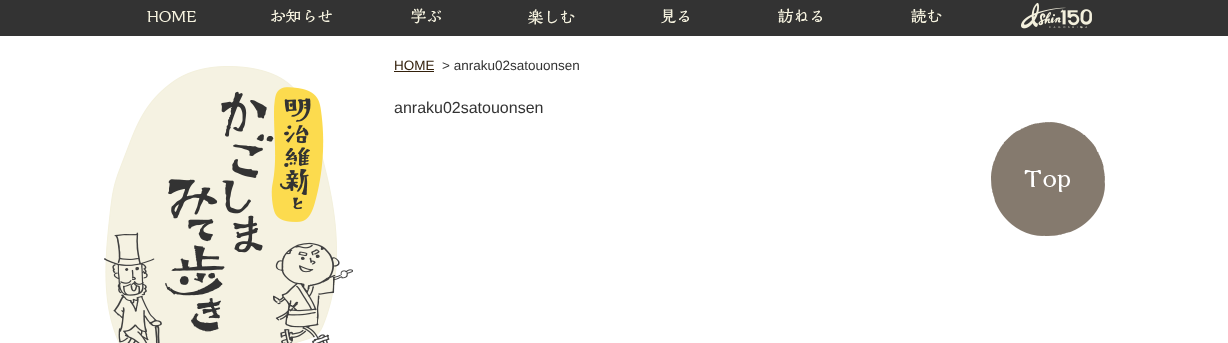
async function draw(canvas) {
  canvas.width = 1228
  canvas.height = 343
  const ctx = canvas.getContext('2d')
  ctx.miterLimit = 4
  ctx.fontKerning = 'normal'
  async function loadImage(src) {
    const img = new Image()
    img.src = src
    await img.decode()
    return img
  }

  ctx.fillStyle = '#fff'
  ctx.fillRect(0, 0, 1228, 343)
  ctx.fillStyle = '#333'
  ctx.fillRect(0, 0, 1228, 36)
  ctx.drawImage(await loadImage('image0.png'), 147, 11, 49, 12)
  ctx.drawImage(await loadImage('image1.png'), 271, 9, 61, 14)
  ctx.drawImage(await loadImage('image2.png'), 411, 8, 30, 16)
  ctx.drawImage(await loadImage('image3.png'), 528, 9, 47, 16)
  ctx.drawImage(await loadImage('image4.png'), 661, 9, 28, 15)
  ctx.drawImage(await loadImage('image5.png'), 778, 8, 44, 15)
  ctx.drawImage(await loadImage('image6.png'), 911, 8, 31, 16)
  ctx.drawImage(await loadImage('image7.png'), 1021, 2, 71, 27)
  ctx.drawImage(await loadImage('image8.png'), 104, 66, 249, 277)
  ctx.font = '13.5px Liberation Sans'
  ctx.fillStyle = '#33200b'
  ctx.fillText('HOME', 394, 70)
  ctx.fillRect(394, 71, 40, 1)
  ctx.fillStyle = '#333'
  ctx.fillText('> anraku02satouonsen', 442, 70)
  ctx.font = '16px Liberation Sans'
  ctx.fillText('anraku02satouonsen', 394, 113)
  ctx.drawImage(await loadImage('image9.png'), 991, 122, 114, 114)
}

draw(document.querySelector('canvas'))
